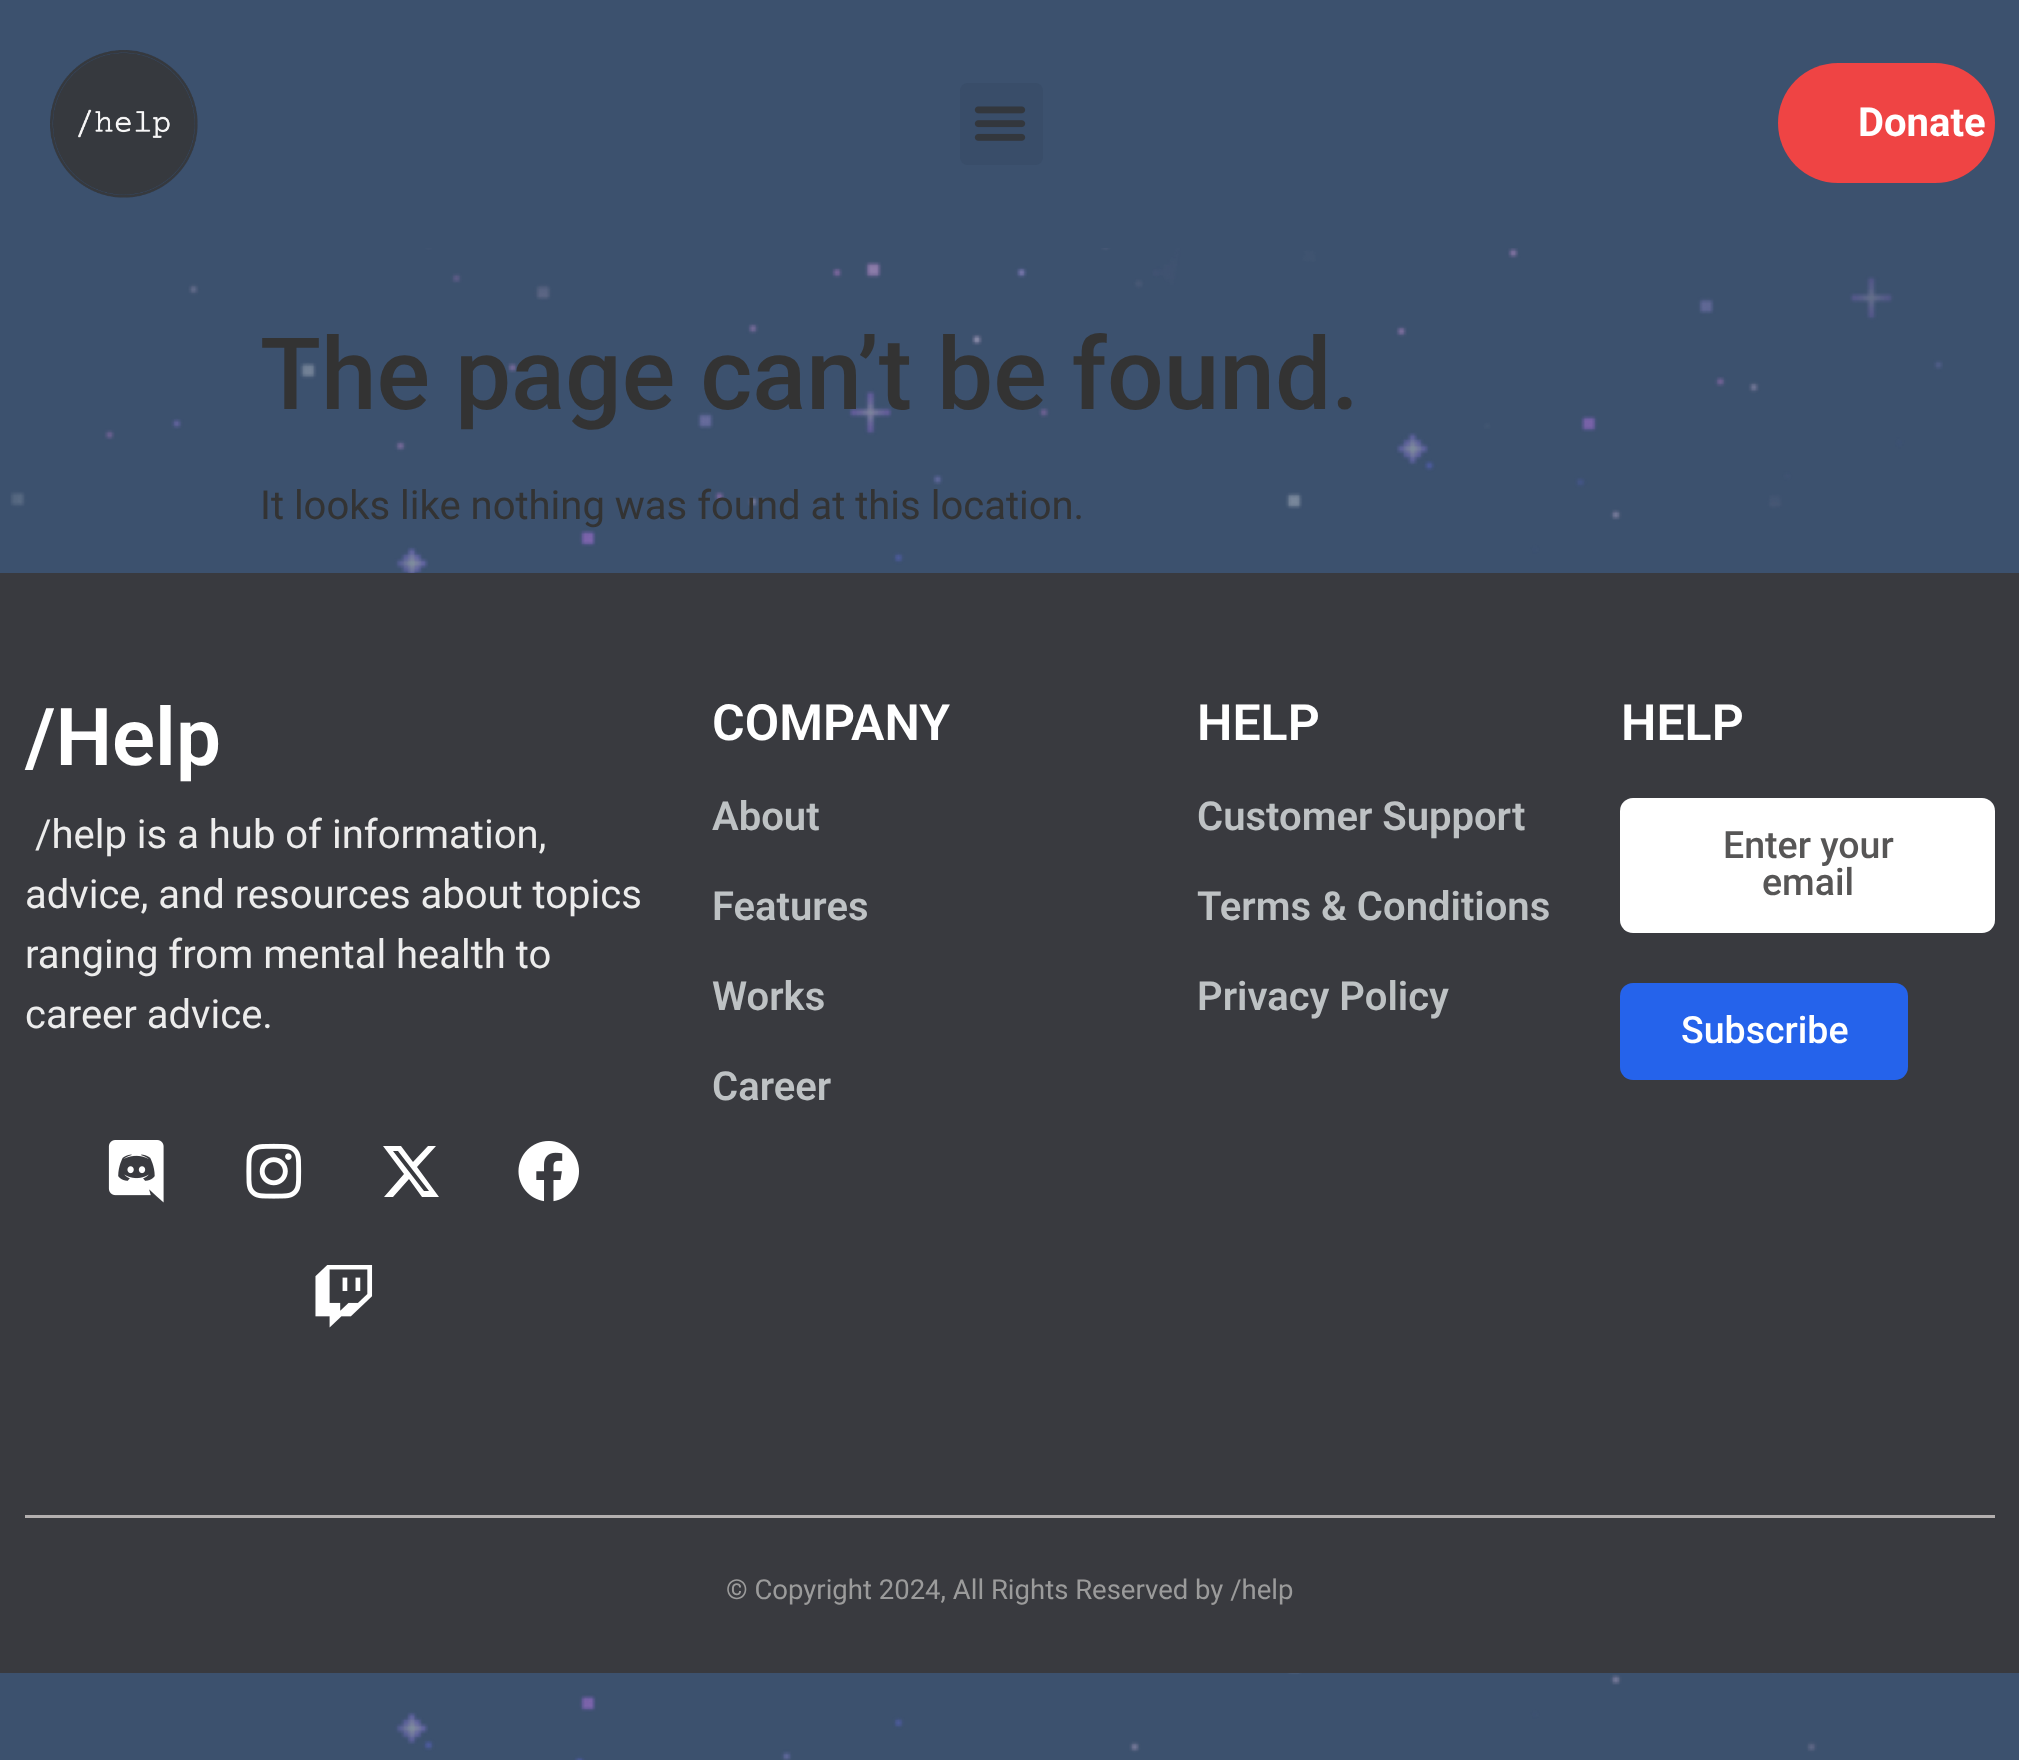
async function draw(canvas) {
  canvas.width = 2019
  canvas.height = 1760
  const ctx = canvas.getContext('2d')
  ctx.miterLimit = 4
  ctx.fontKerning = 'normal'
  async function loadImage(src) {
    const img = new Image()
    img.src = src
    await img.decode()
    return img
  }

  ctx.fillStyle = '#3c516e'
  ctx.fillRect(0, 0, 2019, 1760)
  ctx.drawImage(await loadImage('image0.png'), 10, 248, 1933, 1512)
  ctx.drawImage(await loadImage('image1.png'), 50, 50, 148, 148)
  ctx.fillStyle = '#394d69'
  ctx.beginPath()
  ctx.roundRect(960, 83, 83, 82, 8)
  ctx.fill()
  ctx.drawImage(await loadImage('image2.png'), 974, 106, 52, 35)
  ctx.fillStyle = '#ef4444'
  ctx.beginPath()
  ctx.roundRect(1778, 63, 217, 120, 60)
  ctx.fill()
  ctx.font = 'bold 40px Roboto'
  ctx.fillStyle = '#fff'
  ctx.fillText('Donate', 1858, 136)
  ctx.font = '500 100px Roboto'
  ctx.fillStyle = '#333'
  ctx.fillText('The page can’t be found.', 260, 409)
  ctx.font = '40px Roboto'
  ctx.fillText('It looks like nothing was found at this location.', 260, 519)
  ctx.fillStyle = '#393a3f'
  ctx.fillRect(0, 573, 2019, 1100)
  ctx.font = '600 80px Roboto'
  ctx.fillStyle = '#fff'
  ctx.fillText('/Help', 25, 765)
  ctx.font = '40px Roboto'
  ctx.fillStyle = '#ececec'
  ctx.fillText('/help is a hub of information,', 35, 848)
  ctx.fillText('advice, and resources about topics', 25, 908)
  ctx.fillText('ranging from mental health to', 25, 968)
  ctx.fillText('career advice.', 25, 1028)
  ctx.drawImage(await loadImage('image3.png'), 108, 1140, 56, 63)
  ctx.drawImage(await loadImage('image4.png'), 246, 1143, 56, 56)
  ctx.fillStyle = '#fff'
  ctx.beginPath()
  ctx.moveTo(428, 1146)
  ctx.lineTo(436, 1146)
  ctx.lineTo(417, 1167)
  ctx.lineTo(439, 1197)
  ctx.lineTo(422, 1197)
  ctx.lineTo(409, 1179)
  ctx.lineTo(393, 1197)
  ctx.lineTo(384, 1197)
  ctx.lineTo(404, 1174)
  ctx.lineTo(383, 1146)
  ctx.lineTo(401, 1146)
  ctx.lineTo(413, 1162)
  ctx.closePath()
  ctx.moveTo(424, 1191)
  ctx.lineTo(429, 1191)
  ctx.lineTo(398, 1151)
  ctx.lineTo(393, 1151)
  ctx.closePath()
  ctx.fill()
  ctx.drawImage(await loadImage('image5.png'), 518, 1141, 61, 61)
  ctx.drawImage(await loadImage('image6.png'), 315, 1265, 58, 63)
  ctx.font = '600 50px Roboto'
  ctx.fillText('COMPANY', 712, 740)
  ctx.font = '600 40px Roboto'
  ctx.fillStyle = '#bec2c4'
  ctx.fillText('About', 712, 830)
  ctx.fillText('Features', 712, 920)
  ctx.fillText('Works', 712, 1010)
  ctx.fillText('Career', 712, 1100)
  ctx.font = '600 50px Roboto'
  ctx.fillStyle = '#fff'
  ctx.fillText('HELP', 1197, 740)
  ctx.font = '600 40px Roboto'
  ctx.fillStyle = '#bec2c4'
  ctx.fillText('Customer Support', 1197, 830)
  ctx.fillText('Terms & Conditions', 1197, 920)
  ctx.fillText('Privacy Policy', 1197, 1010)
  ctx.font = '600 50px Roboto'
  ctx.fillStyle = '#fff'
  ctx.fillText('HELP', 1621, 740)
  ctx.beginPath()
  ctx.roundRect(1620, 798, 375, 135, 13)
  ctx.fill()
  ctx.font = '500 37.5px Roboto'
  ctx.fillStyle = '#575656'
  ctx.fillText('Enter your', 1723, 858)
  ctx.fillText('email', 1762, 895)
  ctx.fillStyle = '#2563eb'
  ctx.beginPath()
  ctx.roundRect(1620, 983, 288, 97, 13)
  ctx.fill()
  ctx.fillStyle = '#fff'
  ctx.fillText('Subscribe', 1681, 1043)
  ctx.fillStyle = '#b3afaf'
  ctx.fillRect(25, 1515, 1970, 3)
  ctx.font = '27.5px Roboto'
  ctx.fillStyle = '#9b9b9b'
  ctx.fillText('© Copyright 2024, All Rights Reserved by /help', 726, 1599)
}

draw(document.querySelector('canvas'))
